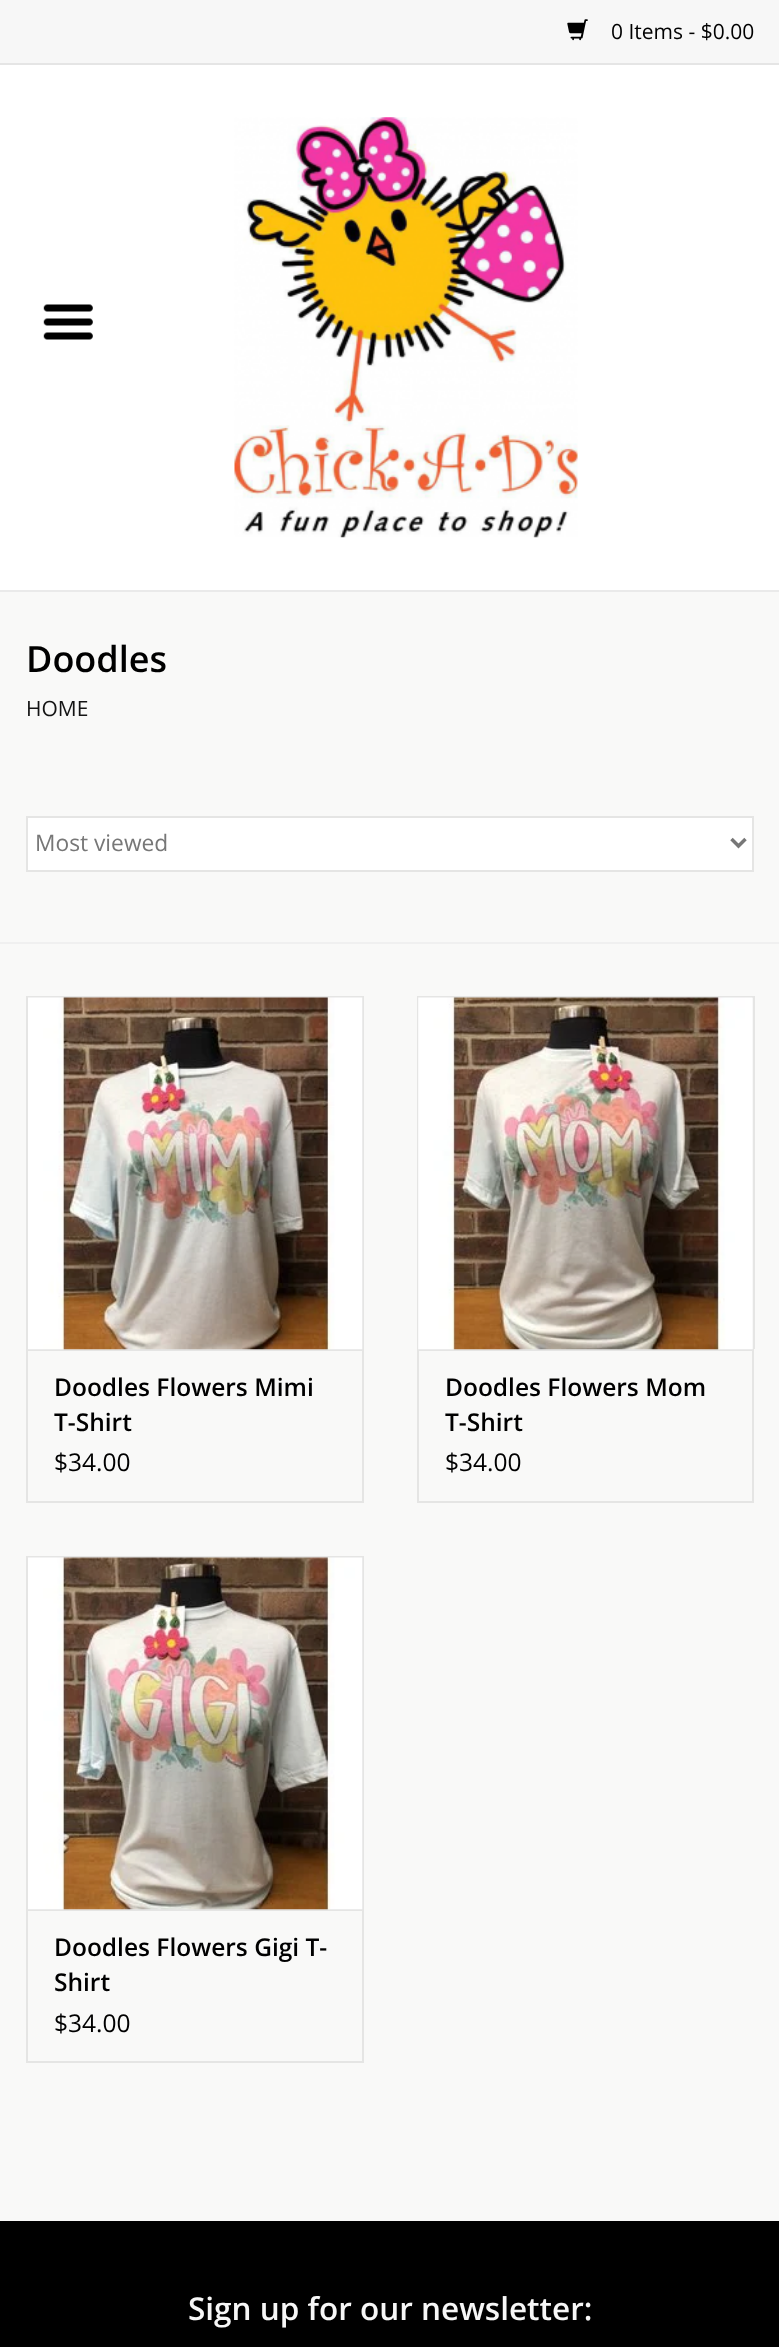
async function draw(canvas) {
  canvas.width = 779
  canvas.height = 2347
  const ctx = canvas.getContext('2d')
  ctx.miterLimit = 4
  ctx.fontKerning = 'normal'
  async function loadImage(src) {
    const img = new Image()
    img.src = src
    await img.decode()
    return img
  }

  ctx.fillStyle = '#fff'
  ctx.fillRect(0, 0, 779, 2347)
  ctx.fillStyle = '#f7f7f7'
  ctx.fillRect(0, 0, 779, 63)
  ctx.fillStyle = '#e5e5e5'
  ctx.fillRect(0, 63, 779, 2)
  ctx.drawImage(await loadImage('image0.png'), 567, 19, 21, 22)
  ctx.font = '21px Open Sans'
  ctx.fillStyle = '#000'
  ctx.fillText('0 Items - $0.00', 611, 39)
  ctx.fillStyle = '#eaeaea'
  ctx.fillRect(0, 590, 779, 2)
  ctx.drawImage(await loadImage('image1.png'), 234, 117, 344, 421)
  ctx.drawImage(await loadImage('image2.png'), 43, 304, 50, 36)
  ctx.fillStyle = '#f9f9f8'
  ctx.fillRect(0, 592, 779, 1629)
  ctx.font = '600 36px Open Sans'
  ctx.fillStyle = '#000'
  ctx.fillText('Doodles', 26, 672)
  ctx.font = '21px Open Sans'
  ctx.fillStyle = '#141414'
  ctx.fillText('HOME', 26, 716)
  ctx.fillStyle = '#f0f0f0'
  ctx.fillRect(0, 942, 779, 2)
  ctx.fillStyle = '#fff'
  ctx.beginPath()
  ctx.rect(27, 817, 726, 54)
  ctx.fill()
  ctx.strokeStyle = '#e5e5e4'
  ctx.lineWidth = 2
  ctx.stroke()
  ctx.beginPath()
  ctx.moveTo(731.5, 839)
  ctx.lineTo(738.5, 846)
  ctx.lineTo(745.5, 839)
  ctx.strokeStyle = '#777'
  ctx.lineWidth = 3.5
  ctx.stroke()
  ctx.font = '22.75px Open Sans'
  ctx.fillStyle = '#777'
  ctx.fillText('Most viewed', 35, 851)
  ctx.fillStyle = '#e5e5e4'
  ctx.fillRect(26, 996, 338, 2)
  ctx.fillRect(362, 996, 2, 353)
  ctx.fillRect(26, 996, 2, 353)
  ctx.strokeStyle = '#e5e5e4'
  ctx.lineWidth = 2
  ctx.strokeRect(27, 1350, 336, 152)
  ctx.drawImage(await loadImage('image3.png'), 28, 997, 335, 353)
  ctx.font = '600 24.5px Open Sans'
  ctx.fillStyle = '#000'
  ctx.fillText('Doodles Flowers Mimi', 54, 1396)
  ctx.fillText('T-Shirt', 54, 1431)
  ctx.font = '24.5px Open Sans'
  ctx.fillText('$34.00', 54, 1471)
  ctx.fillStyle = '#f1f1f0'
  ctx.fillRect(752, 998, 1, 351)
  ctx.fillStyle = '#e5e5e4'
  ctx.fillRect(417, 996, 337, 2)
  ctx.fillRect(753, 996, 2, 353)
  ctx.fillRect(417, 996, 2, 353)
  ctx.strokeRect(418, 1350, 335, 152)
  ctx.drawImage(await loadImage('image4.png'), 418, 997, 335, 353)
  ctx.font = '600 24.5px Open Sans'
  ctx.fillStyle = '#000'
  ctx.fillText('Doodles Flowers Mom', 445, 1396)
  ctx.save()
  ctx.beginPath()
  ctx.rect(445, 1370, 281, 70)
  ctx.clip()
  ctx.fillText('T-Shirt', 445, 1431)
  ctx.restore()
  ctx.font = '24.5px Open Sans'
  ctx.fillText('$34.00', 445, 1471)
  ctx.fillStyle = '#e5e5e4'
  ctx.fillRect(26, 1556, 338, 2)
  ctx.fillRect(362, 1556, 2, 353)
  ctx.fillRect(26, 1556, 2, 353)
  ctx.strokeRect(27, 1910, 336, 152)
  ctx.drawImage(await loadImage('image5.png'), 28, 1557, 335, 353)
  ctx.font = '600 24.5px Open Sans'
  ctx.fillStyle = '#000'
  ctx.fillText('Doodles Flowers Gigi T-', 54, 1956)
  ctx.fillText('Shirt', 54, 1991)
  ctx.font = '24.5px Open Sans'
  ctx.fillText('$34.00', 54, 2032)
  ctx.fillRect(0, 2221, 779, 126)
  ctx.font = '600 31.5px Open Sans'
  ctx.fillStyle = '#f7f7f7'
  ctx.fillText('Sign up for our newsletter:', 188, 2320)
}

draw(document.querySelector('canvas'))
